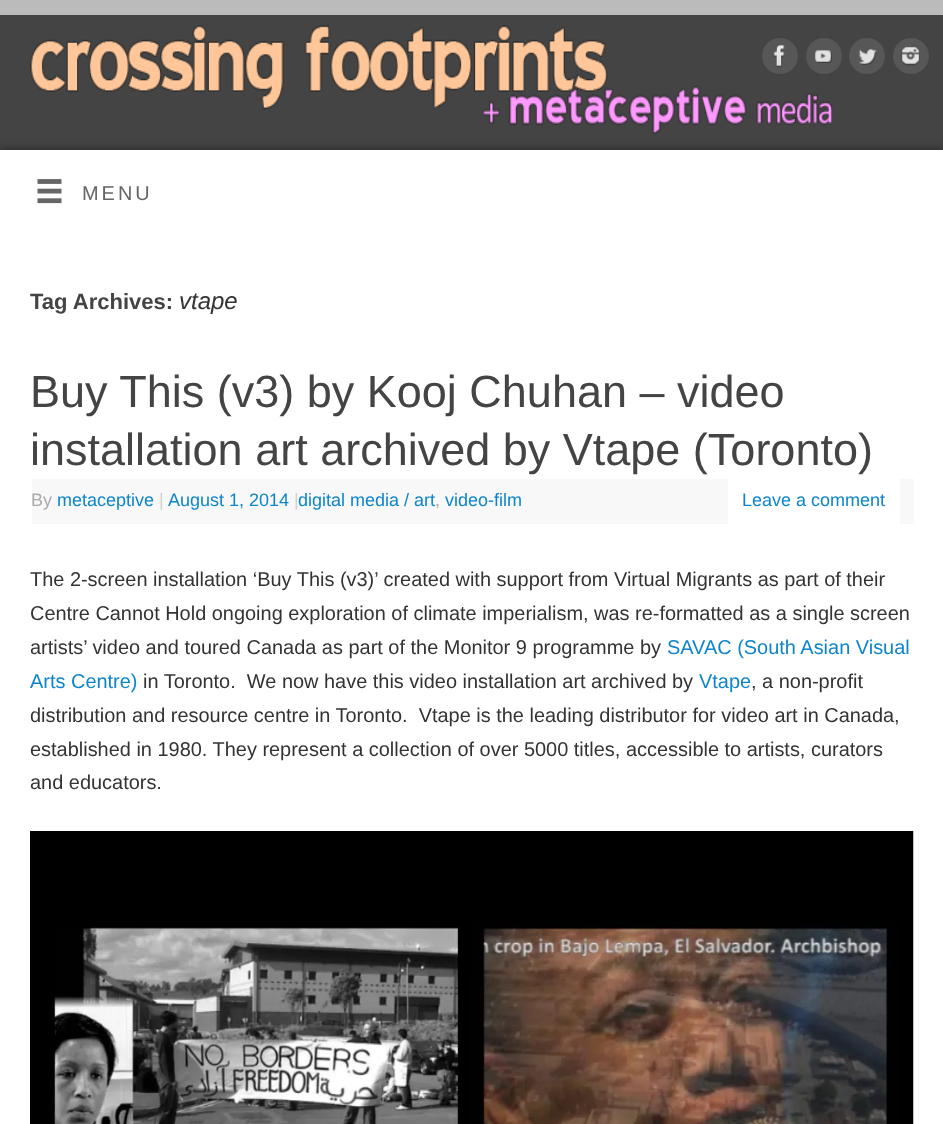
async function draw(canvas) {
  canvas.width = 943
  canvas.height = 1124
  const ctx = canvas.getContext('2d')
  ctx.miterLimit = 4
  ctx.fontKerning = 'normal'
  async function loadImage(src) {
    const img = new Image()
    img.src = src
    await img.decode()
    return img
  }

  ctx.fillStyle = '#bbb'
  ctx.fillRect(0, 0, 943, 1124)
  ctx.fillStyle = '#444'
  ctx.fillRect(0, 15, 943, 135)
  ctx.drawImage(await loadImage('image0.png'), 30, 25, 803, 109)
  ctx.fillStyle = '#575757'
  ctx.beginPath()
  ctx.arc(780, 56, 18, 0, 2 * Math.PI)
  ctx.fill()
  ctx.drawImage(await loadImage('image1.png'), 773, 45, 12, 23)
  ctx.beginPath()
  ctx.arc(824, 56, 18, 0, 2 * Math.PI)
  ctx.fill()
  ctx.drawImage(await loadImage('image2.png'), 815, 50, 17, 13)
  ctx.beginPath()
  ctx.arc(867, 56, 18, 0, 2 * Math.PI)
  ctx.fill()
  ctx.drawImage(await loadImage('image3.png'), 858, 49, 19, 16)
  ctx.beginPath()
  ctx.arc(911, 56, 18, 0, 2 * Math.PI)
  ctx.fill()
  ctx.drawImage(await loadImage('image4.png'), 901, 47, 19, 19)
  ctx.fillStyle = '#00000080'
  ctx.filter = 'blur(4px)'
  ctx.beginPath()
  ctx.rect(0, 150, 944, 81)
  ctx.fill()
  ctx.filter = 'none'
  ctx.fillStyle = '#fff'
  ctx.fillRect(0, 150, 943, 974)
  ctx.drawImage(await loadImage('image5.png'), 37, 179, 25, 25)
  ctx.letterSpacing = '3px'
  ctx.font = '19.95px Liberation Sans'
  ctx.fillStyle = '#666'
  ctx.fillText('MENU', 82, 200)
  ctx.letterSpacing = '0px'
  ctx.font = 'bold 22px Liberation Sans'
  ctx.fillStyle = '#444'
  ctx.fillText('Tag Archives:', 30, 309)
  ctx.font = 'italic 24px Liberation Sans'
  ctx.fillStyle = '#333'
  ctx.fillText('vtape', 179, 309)
  ctx.font = '45px Liberation Sans'
  ctx.fillStyle = '#444'
  ctx.fillText('Buy This (v3) by Kooj Chuhan – video', 30, 407)
  ctx.fillText('installation art archived by Vtape (Toronto)', 30, 465)
  ctx.fillStyle = '#f8f8f8'
  ctx.fillRect(32, 479, 882, 45)
  ctx.font = '18px Liberation Sans'
  ctx.fillStyle = '#aaa'
  ctx.fillText('By', 31, 506)
  ctx.fillStyle = '#0d85cc'
  ctx.fillText('metaceptive', 57, 506)
  ctx.fillStyle = '#d1d1d1'
  ctx.fillText('|', 159, 506)
  ctx.fillStyle = '#0d85cc'
  ctx.fillText('August 1, 2014', 168, 506)
  ctx.fillStyle = '#d1d1d1'
  ctx.fillText('|', 294, 506)
  ctx.fillStyle = '#0d85cc'
  ctx.fillText('digital media / art', 298, 506)
  ctx.fillStyle = '#aaa'
  ctx.fillText(',', 435, 506)
  ctx.fillStyle = '#0d85cc'
  ctx.fillText('video-film', 445, 506)
  ctx.fillStyle = '#fff'
  ctx.fillRect(728, 479, 172, 45)
  ctx.fillStyle = '#0d85cc'
  ctx.fillText('Leave a comment', 742, 506)
  ctx.font = '19.95px Liberation Sans'
  ctx.fillStyle = '#333'
  ctx.fillText('The 2-screen installation ‘Buy This (v3)’ created with support from Virtual Migrants as part of their', 30, 586)
  ctx.fillText('Centre Cannot Hold ongoing exploration of climate imperialism, was re-formatted as a single screen', 30, 620)
  ctx.fillText('artists’ video and toured Canada as part of the Monitor 9 programme by', 30, 654)
  ctx.fillStyle = '#0d85cc'
  ctx.fillText('SAVAC (South Asian Visual', 667, 654)
  ctx.fillText('Arts Centre)', 30, 688)
  ctx.fillStyle = '#333'
  ctx.fillText('in Toronto.  We now have this video installation art archived by', 143, 688)
  ctx.fillStyle = '#0d85cc'
  ctx.fillText('Vtape', 699, 688)
  ctx.fillStyle = '#333'
  ctx.fillText(', a non-profit', 751, 688)
  ctx.fillText('distribution and resource centre in Toronto.  Vtape is the leading distributor for video art in Canada,', 30, 722)
  ctx.fillText('established in 1980. They represent a collection of over 5000 titles, accessible to artists, curators', 30, 756)
  ctx.fillText('and educators.', 30, 789)
  ctx.drawImage(await loadImage('image6.png'), 30, 831, 884, 293)
}

draw(document.querySelector('canvas'))
